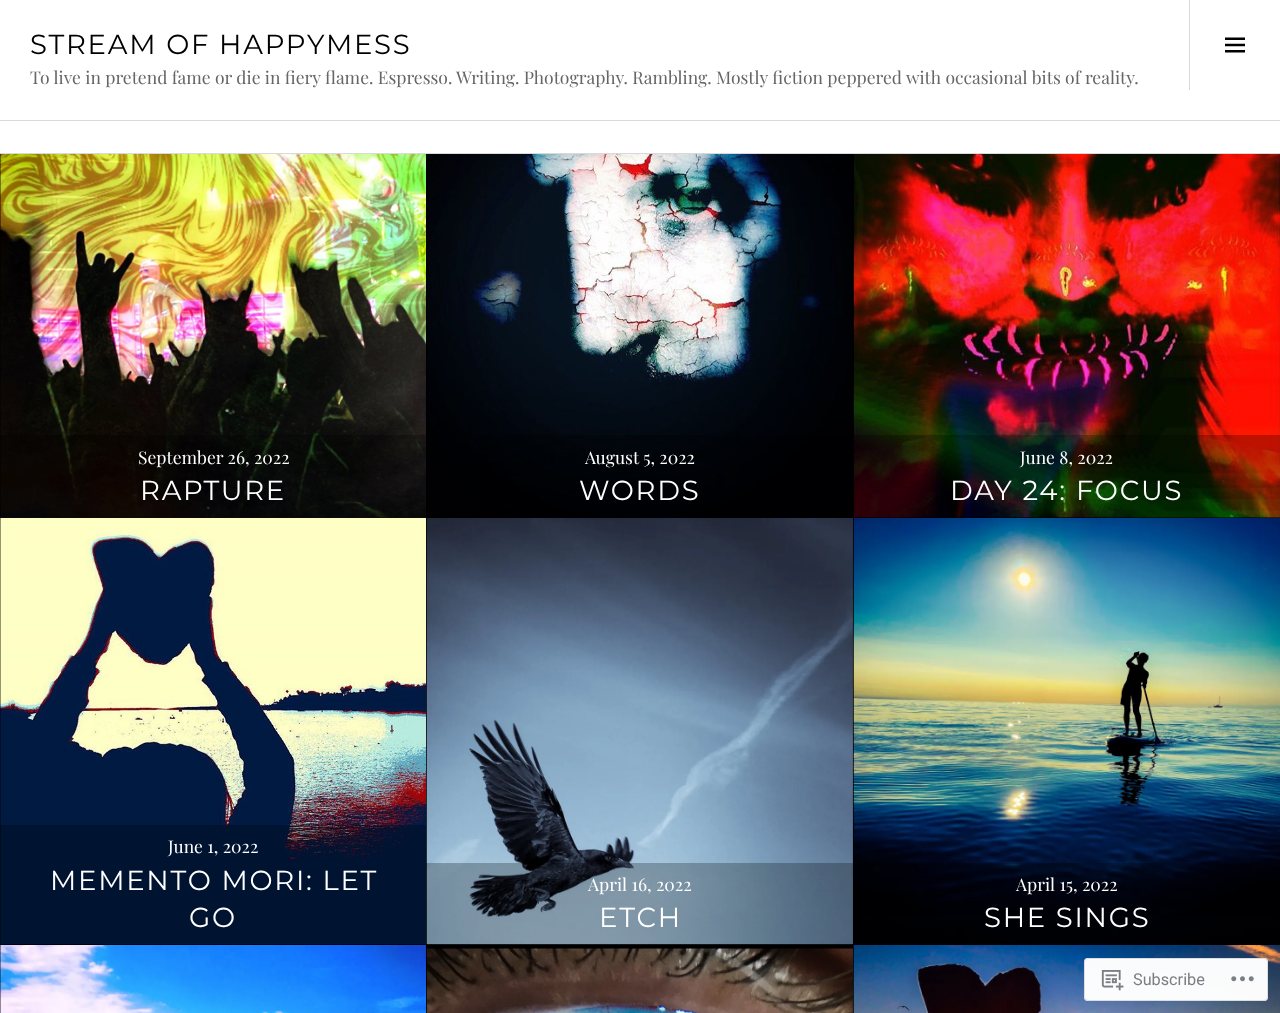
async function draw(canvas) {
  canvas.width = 1280
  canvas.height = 1013
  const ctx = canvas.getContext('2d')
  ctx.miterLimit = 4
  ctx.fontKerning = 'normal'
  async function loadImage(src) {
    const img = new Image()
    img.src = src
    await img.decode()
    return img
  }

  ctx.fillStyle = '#000'
  ctx.fillRect(0, 0, 1280, 1013)
  ctx.fillStyle = '#fff'
  ctx.fillRect(0, 0, 1280, 120)
  ctx.fillStyle = '#d9d9d9'
  ctx.fillRect(0, 120, 1280, 1)
  ctx.letterSpacing = '1.75px'
  ctx.font = '27.5px Montserrat'
  ctx.fillStyle = '#000'
  ctx.fillText('STREAM OF HAPPYMESS', 30, 54)
  ctx.letterSpacing = '0px'
  ctx.font = '17.5px Playfair Display'
  ctx.fillStyle = '#666'
  ctx.fillText('To live in pretend fame or die in fiery flame. Espresso. Writing. Photography. Rambling. Mostly fiction peppered with occasional bits of reality.', 30, 84)
  ctx.fillStyle = '#d9d9d9'
  ctx.fillRect(1189, 0, 1, 90)
  ctx.drawImage(await loadImage('image0.png'), 1225, 37, 20, 16)
  ctx.fillStyle = '#fff'
  ctx.fillRect(0, 121, 1280, 32)
  ctx.fillStyle = '#d9d9d9'
  ctx.fillRect(0, 153, 1280, 1)
  ctx.drawImage(await loadImage('image1.png'), 0, 154, 426, 364)
  ctx.drawImage(await loadImage('image4.png'), 0, 517, 426, 428)
  ctx.fillStyle = '#00000040'
  ctx.fillRect(0, 435, 426, 83)
  ctx.fillStyle = '#fff'
  ctx.fillText('September 26, 2022', 138, 464)
  ctx.letterSpacing = '1.75px'
  ctx.font = '27.5px Montserrat'
  ctx.fillText('RAPTURE', 140, 500)
  ctx.drawImage(await loadImage('image2.png'), 427, 154, 426, 363)
  ctx.drawImage(await loadImage('image3.png'), 853, 154, 427, 364)
  ctx.fillStyle = '#00000040'
  ctx.fillRect(479, 435, 375, 82)
  ctx.letterSpacing = '0px'
  ctx.font = '17.5px Playfair Display'
  ctx.fillStyle = '#fff'
  ctx.fillText('August 5, 2022', 585, 464)
  ctx.letterSpacing = '1.75px'
  ctx.font = '27.5px Montserrat'
  ctx.fillText('WORDS', 579, 500)
  ctx.drawImage(await loadImage('image6.png'), 853, 517, 427, 427)
  ctx.fillStyle = '#00000040'
  ctx.fillRect(854, 435, 426, 83)
  ctx.letterSpacing = '0px'
  ctx.font = '17.5px Playfair Display'
  ctx.fillStyle = '#fff'
  ctx.fillText('June 8, 2022', 1020, 464)
  ctx.letterSpacing = '1.75px'
  ctx.font = '27.5px Montserrat'
  ctx.fillText('DAY 24: FOCUS', 950, 500)
  ctx.fillStyle = '#00000040'
  ctx.fillRect(0, 825, 426, 120)
  ctx.letterSpacing = '0px'
  ctx.font = '17.5px Playfair Display'
  ctx.fillStyle = '#fff'
  ctx.fillText('June 1, 2022', 168, 853)
  ctx.letterSpacing = '1.75px'
  ctx.font = '27.5px Montserrat'
  ctx.fillText('MEMENTO MORI: LET', 50, 890)
  ctx.fillText('GO', 189, 927)
  ctx.drawImage(await loadImage('image5.png'), 426, 518, 427, 427)
  ctx.fillStyle = '#00000040'
  ctx.fillRect(426, 863, 427, 82)
  ctx.letterSpacing = '0px'
  ctx.font = '17.5px Playfair Display'
  ctx.fillStyle = '#fff'
  ctx.fillText('April 16, 2022', 588, 891)
  ctx.letterSpacing = '1.75px'
  ctx.font = '27.5px Montserrat'
  ctx.fillText('ETCH', 599, 927)
  ctx.fillStyle = '#00000040'
  ctx.fillRect(854, 863, 426, 53)
  ctx.letterSpacing = '0px'
  ctx.font = '17.5px Playfair Display'
  ctx.fillStyle = '#fff'
  ctx.fillText('April 15, 2022', 1016, 891)
  ctx.letterSpacing = '1.75px'
  ctx.font = '27.5px Montserrat'
  ctx.fillText('SHE SINGS', 984, 927)
  ctx.drawImage(await loadImage('image7.png'), 0, 945, 426, 68)
  ctx.drawImage(await loadImage('image8.png'), 426, 948, 427, 65)
  ctx.drawImage(await loadImage('image9.png'), 853, 945, 427, 68)
  ctx.fillStyle = '#fffffffa'
  ctx.beginPath()
  ctx.roundRect(1084, 958, 184, 43, 4)
  ctx.fill()
  ctx.beginPath()
  ctx.roundRect(1084.5, 958.5, 183, 42, 3.5)
  ctx.strokeStyle = '#dcdcdefa'
  ctx.stroke()
  ctx.drawImage(await loadImage('image10.png'), 1101, 970, 23, 21)
  ctx.letterSpacing = '0px'
  ctx.font = '16.25px Roboto'
  ctx.fillStyle = '#7b7f84'
  ctx.fillText('Subscribe', 1133, 985)
  ctx.drawImage(await loadImage('image11.png'), 1231, 976, 23, 6)
}

draw(document.querySelector('canvas'))
